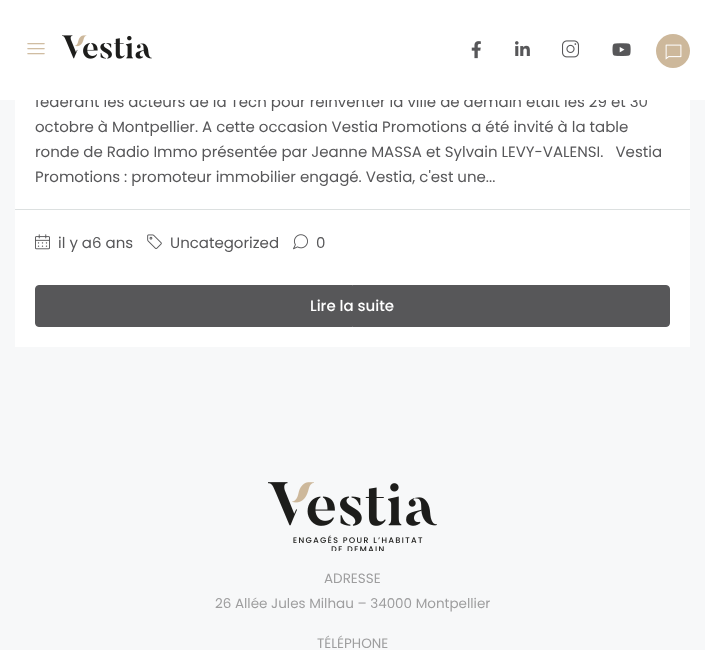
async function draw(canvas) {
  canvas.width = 705
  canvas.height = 650
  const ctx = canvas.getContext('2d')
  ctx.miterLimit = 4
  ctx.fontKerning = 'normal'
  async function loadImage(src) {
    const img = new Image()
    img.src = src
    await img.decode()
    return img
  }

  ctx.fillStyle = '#f7f8f9'
  ctx.fillRect(0, 0, 705, 650)
  ctx.fillStyle = '#fff'
  ctx.fillRect(15, 100, 675, 247)
  ctx.font = '15px Poppins'
  ctx.fillStyle = '#575759'
  ctx.fillText('fédérant les acteurs de la Tech pour réinventer la ville de demain était les 29 et 30', 35, 107)
  ctx.fillStyle = '#fff'
  ctx.fillRect(0, 0, 705, 100)
  ctx.drawImage(await loadImage('image0.png'), 27, 43, 18, 12)
  ctx.drawImage(await loadImage('image1.png'), 62, 35, 90, 24)
  ctx.drawImage(await loadImage('image2.png'), 471, 41, 10, 18)
  ctx.drawImage(await loadImage('image3.png'), 515, 41, 15, 15)
  ctx.drawImage(await loadImage('image4.png'), 562, 40, 17, 18)
  ctx.drawImage(await loadImage('image5.png'), 612, 43, 19, 13)
  ctx.fillStyle = '#cdb89b'
  ctx.beginPath()
  ctx.arc(673, 51, 17, 0, 2 * Math.PI)
  ctx.fill()
  ctx.drawImage(await loadImage('image6.png'), 665, 44, 17, 16)
  ctx.fillStyle = '#575759'
  ctx.fillText('octobre à Montpellier. A cette occasion Vestia Promotions a été invité à la table', 35, 132)
  ctx.fillText('ronde de Radio Immo présentée par Jeanne MASSA et Sylvain LEVY-VALENSI.   Vestia', 35, 157)
  ctx.fillText('Promotions : promoteur immobilier engagé. Vestia, c\'est une...', 35, 182)
  ctx.fillStyle = '#dce0e0'
  ctx.fillRect(15, 209, 675, 1)
  ctx.drawImage(await loadImage('image7.png'), 35, 234, 15, 16)
  ctx.fillStyle = '#575759'
  ctx.fillText('il y a6 ans', 58, 248)
  ctx.drawImage(await loadImage('image8.png'), 147, 234, 15, 15)
  ctx.fillText('Uncategorized', 170, 248)
  ctx.drawImage(await loadImage('image9.png'), 293, 234, 15, 16)
  ctx.fillText('0', 316, 248)
  ctx.beginPath()
  ctx.roundRect(35.5, 285.5, 634, 41, 3.5)
  ctx.fill()
  ctx.strokeStyle = '#575759'
  ctx.stroke()
  ctx.font = '500 15px Poppins'
  ctx.fillStyle = '#fff'
  ctx.fillText('Lire la suite', 310, 311)
  ctx.drawImage(await loadImage('image10.png'), 268, 482, 169, 69)
  ctx.font = '13.5px Poppins'
  ctx.fillStyle = '#9e9e9f'
  ctx.fillText('ADRESSE', 324, 583)
  ctx.fillText('26 Allée Jules Milhau – 34000 Montpellier', 215, 608)
  ctx.fillText('TÉLÉPHONE', 317, 648)
}

draw(document.querySelector('canvas'))
